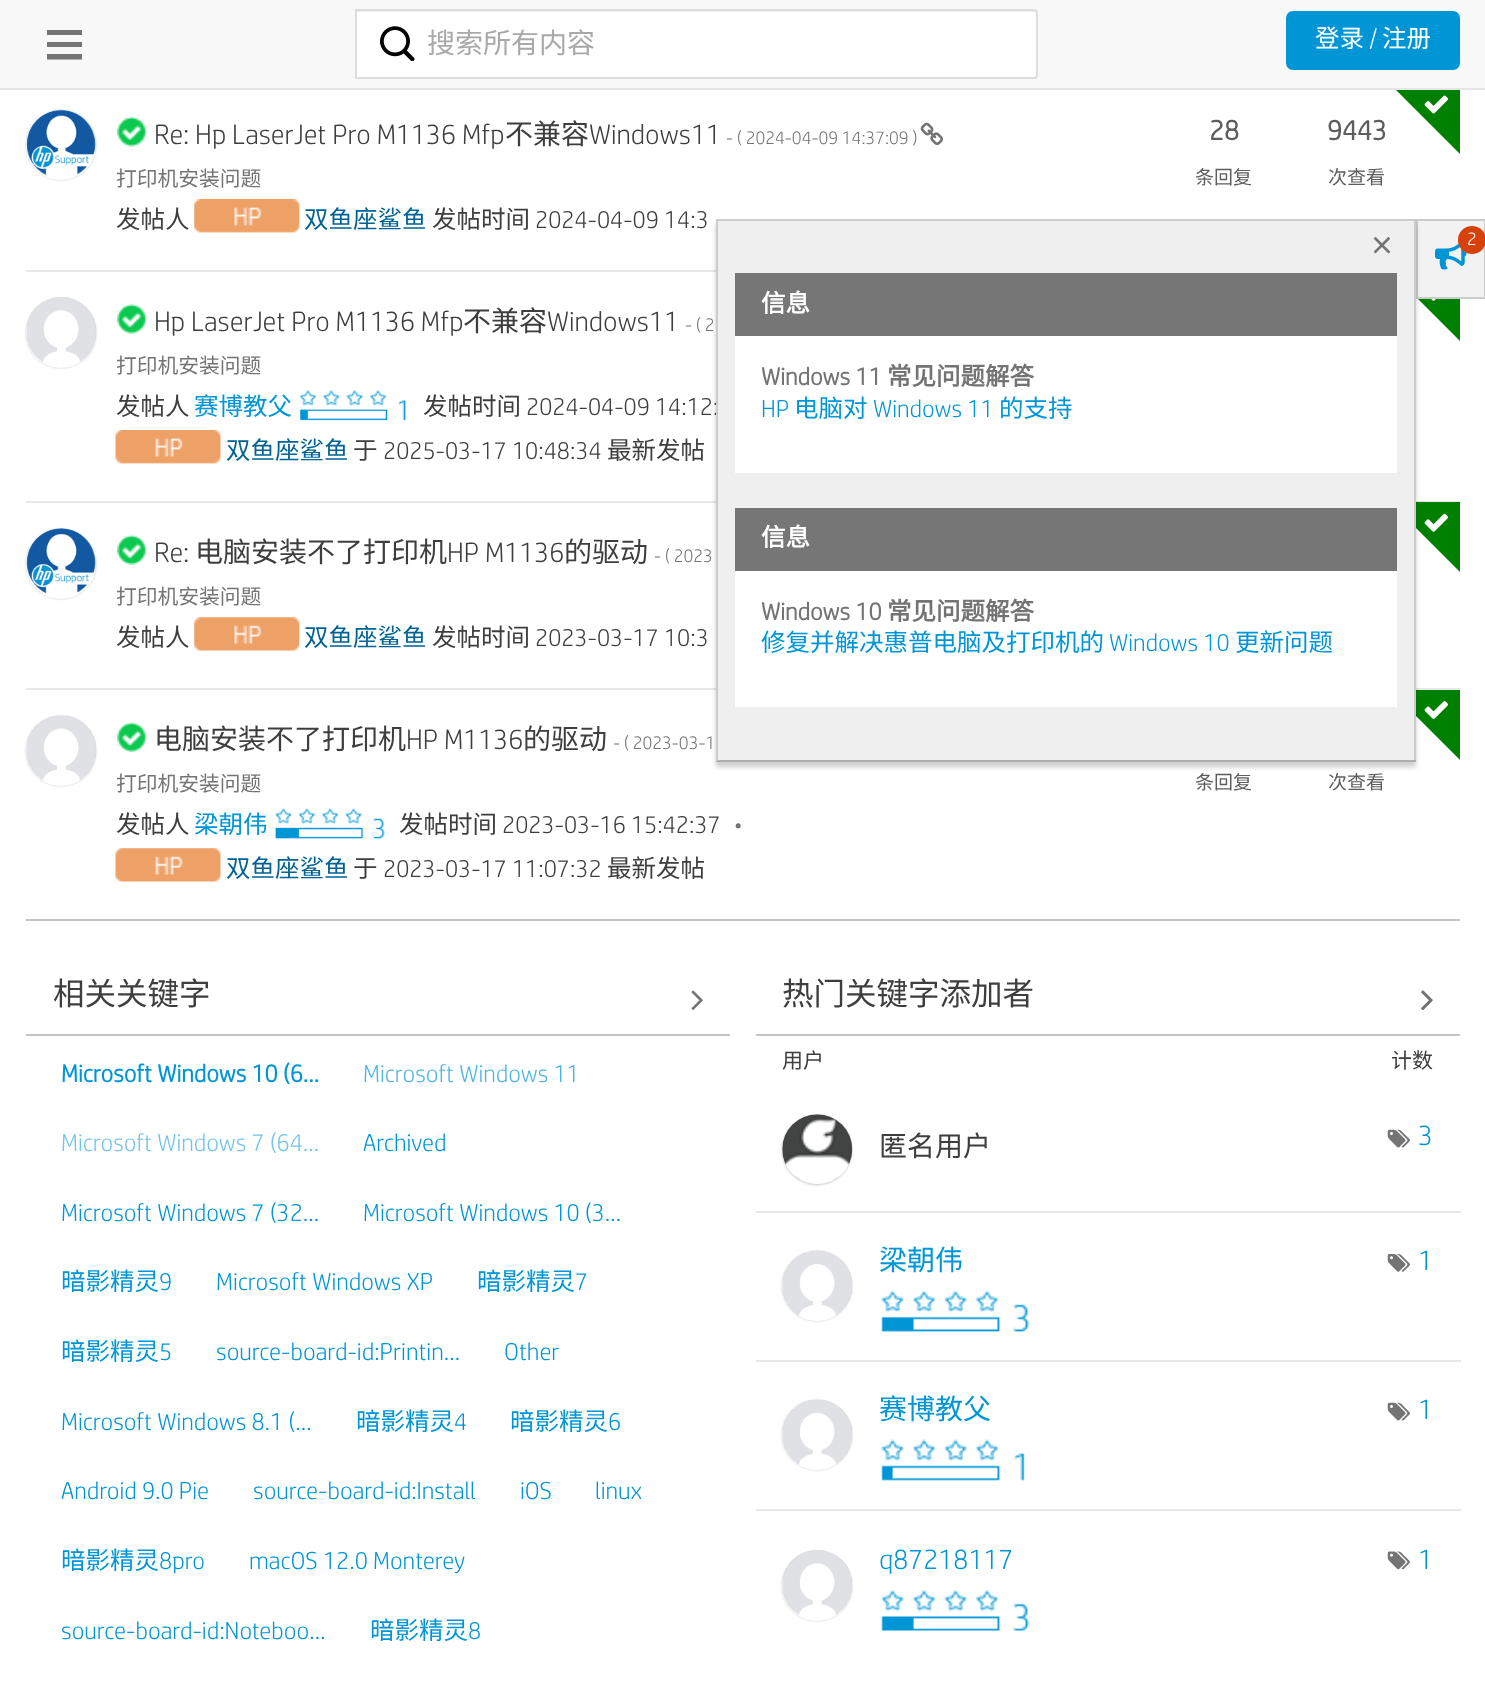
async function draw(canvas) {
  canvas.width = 1485
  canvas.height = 1682
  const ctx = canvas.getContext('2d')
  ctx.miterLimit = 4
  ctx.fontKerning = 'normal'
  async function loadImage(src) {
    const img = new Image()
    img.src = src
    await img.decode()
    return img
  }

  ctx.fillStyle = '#fff'
  ctx.fillRect(0, 0, 1485, 1682)
  ctx.fillStyle = '#008000'
  ctx.beginPath()
  ctx.moveTo(1390, 84)
  ctx.lineTo(1460, 84)
  ctx.lineTo(1460, 154)
  ctx.closePath()
  ctx.fill()
  ctx.fillStyle = '#f8f8f8'
  ctx.fillRect(0, 0, 1485, 88)
  ctx.fillStyle = '#e5e5e5'
  ctx.fillRect(0, 88, 1485, 2)
  ctx.fillStyle = '#747474'
  ctx.beginPath()
  ctx.moveTo(47, 30)
  ctx.lineTo(82, 30)
  ctx.lineTo(82, 35)
  ctx.lineTo(47, 35)
  ctx.closePath()
  ctx.moveTo(47, 42)
  ctx.lineTo(82, 42)
  ctx.lineTo(82, 47)
  ctx.lineTo(47, 47)
  ctx.closePath()
  ctx.moveTo(47, 54)
  ctx.lineTo(82, 54)
  ctx.lineTo(82, 59.5)
  ctx.lineTo(47, 59.5)
  ctx.closePath()
  ctx.fill('evenodd')
  ctx.fillStyle = '#fff'
  ctx.beginPath()
  ctx.roundRect(355, 9, 683, 70, [0, 4, 4, 0])
  ctx.fill()
  ctx.fillStyle = '#ececec'
  ctx.beginPath()
  ctx.moveTo(357, 12)
  ctx.lineTo(1034, 12)
  ctx.bezierCurveTo(1035, 12, 1036, 13, 1036, 14)
  ctx.bezierCurveTo(1036, 13, 1036, 11, 1034, 11)
  ctx.lineTo(357, 11)
  ctx.closePath()
  ctx.fill()
  ctx.beginPath()
  ctx.roundRect(356, 10, 681, 68, [0, 3, 3, 0])
  ctx.strokeStyle = '#ddd'
  ctx.lineWidth = 2
  ctx.stroke()
  ctx.drawImage(await loadImage('image0.png'), 380, 26, 35, 35)
  ctx.font = '28px Noto Sans CJK SC'
  ctx.fillStyle = '#a9a9a9'
  ctx.fillText('搜索所有内容', 427, 53)
  ctx.fillStyle = '#0096d6'
  ctx.beginPath()
  ctx.roundRect(1287, 12, 172, 57, 6)
  ctx.fill()
  ctx.strokeStyle = '#0096d6'
  ctx.stroke()
  ctx.font = '24.5px Noto Sans CJK SC'
  ctx.fillStyle = '#fff'
  ctx.fillText('登录', 1315, 47)
  ctx.font = '300 24.5px "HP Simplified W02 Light"'
  ctx.fillText('/', 1369, 47)
  ctx.font = '24.5px Noto Sans CJK SC'
  ctx.fillText('注册', 1382, 47)
  ctx.fillStyle = '#008000'
  ctx.beginPath()
  ctx.moveTo(1390, 271)
  ctx.lineTo(1460, 271)
  ctx.lineTo(1460, 341)
  ctx.closePath()
  ctx.fill()
  ctx.fillStyle = '#f2f2f2'
  ctx.beginPath()
  ctx.rect(1417, 220, 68, 78)
  ctx.fill()
  ctx.strokeStyle = '#ccc'
  ctx.stroke()
  ctx.fillStyle = '#e8e8e8'
  ctx.fillRect(26, 270, 690, 2)
  ctx.fillRect(1423, 501, 38, 2)
  ctx.fillStyle = '#008000'
  ctx.beginPath()
  ctx.moveTo(1390, 502)
  ctx.lineTo(1460, 502)
  ctx.lineTo(1460, 572)
  ctx.closePath()
  ctx.fill()
  ctx.drawImage(await loadImage('image12.png'), 1424, 513, 24, 19)
  ctx.fillStyle = '#e8e8e8'
  ctx.fillRect(1416, 501, 9, 1)
  ctx.fillRect(26, 501, 690, 2)
  ctx.fillRect(26, 688, 690, 2)
  ctx.fillRect(1416, 688, 45, 2)
  ctx.fillStyle = '#008000'
  ctx.beginPath()
  ctx.moveTo(1390, 690)
  ctx.lineTo(1460, 690)
  ctx.lineTo(1460, 760)
  ctx.closePath()
  ctx.fill()
  ctx.drawImage(await loadImage('image19.png'), 1424, 701, 24, 18)
  ctx.fillStyle = '#00000033'
  ctx.filter = 'blur(2.5px)'
  ctx.beginPath()
  ctx.rect(716, 224, 700, 543)
  ctx.fill()
  ctx.filter = 'none'
  ctx.fillStyle = '#efefef'
  ctx.fillRect(718, 221, 696, 539)
  ctx.fillStyle = '#ccc'
  ctx.fillRect(716, 219, 700, 2)
  ctx.fillRect(1414, 219, 2, 542)
  ctx.fillStyle = '#adadad'
  ctx.fillRect(716, 760, 700, 2)
  ctx.font = '300 24.5px "HP Simplified W02 Light"'
  ctx.fillStyle = '#3e3e3e'
  ctx.fillText('2024-04-09 14:12:', 526, 415)
  ctx.fillStyle = '#ccc'
  ctx.fillRect(716, 219, 2, 542)
  ctx.font = '300 52px "HP Simplified W02 Light"'
  ctx.fillStyle = '#747474'
  ctx.fillText('×', 1368, 263)
  ctx.fillStyle = '#767676'
  ctx.fillRect(735, 273, 662, 63)
  ctx.font = 'bold 24.5px Noto Sans CJK SC'
  ctx.fillStyle = '#fff'
  ctx.fillText('信息', 761, 312)
  ctx.fillRect(735, 336, 662, 137)
  ctx.font = 'bold 24.5px "HP Simplified W02 Light"'
  ctx.fillStyle = '#747474'
  ctx.fillText('Windows 11', 761, 385)
  ctx.font = 'bold 24.5px Noto Sans CJK SC'
  ctx.fillText('常见问题解答', 887, 385)
  ctx.font = '300 24.5px "HP Simplified W02 Light"'
  ctx.fillStyle = '#0096d6'
  ctx.fillText('HP', 761, 417)
  ctx.font = '24.5px Noto Sans CJK SC'
  ctx.fillText('电脑对', 794, 417)
  ctx.font = '300 24.5px "HP Simplified W02 Light"'
  ctx.fillText('Windows 11', 873, 417)
  ctx.font = '24.5px Noto Sans CJK SC'
  ctx.fillText('的支持', 999, 417)
  ctx.fillStyle = '#767676'
  ctx.fillRect(735, 508, 662, 63)
  ctx.font = 'bold 24.5px Noto Sans CJK SC'
  ctx.fillStyle = '#fff'
  ctx.fillText('信息', 761, 546)
  ctx.fillRect(735, 571, 662, 136)
  ctx.font = 'bold 24.5px "HP Simplified W02 Light"'
  ctx.fillStyle = '#747474'
  ctx.fillText('Windows 10', 761, 620)
  ctx.font = 'bold 24.5px Noto Sans CJK SC'
  ctx.fillText('常见问题解答', 887, 620)
  ctx.font = '24.5px Noto Sans CJK SC'
  ctx.fillStyle = '#0096d6'
  ctx.fillText('修复并解决惠普电脑及打印机的', 761, 651)
  ctx.font = '300 24.5px "HP Simplified W02 Light"'
  ctx.fillText('Windows 10', 1109, 651)
  ctx.font = '24.5px Noto Sans CJK SC'
  ctx.fillText('更新问题', 1235, 651)
  ctx.drawImage(await loadImage('image1.png'), 1435, 243, 32, 27)
  ctx.fillStyle = '#d7410b'
  ctx.beginPath()
  ctx.arc(1472, 240, 14, 0, 2 * Math.PI)
  ctx.fill()
  ctx.font = '300 18px "HP Simplified W02 Light"'
  ctx.fillStyle = '#fff'
  ctx.fillText('2', 1467, 245)
  ctx.fillStyle = '#c4c4c4'
  ctx.fillRect(26, 919, 1434, 2)
  ctx.save()
  ctx.beginPath()
  ctx.moveTo(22, 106)
  ctx.lineTo(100, 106)
  ctx.lineTo(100, 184)
  ctx.lineTo(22, 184)
  ctx.closePath()
  ctx.moveTo(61, 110)
  ctx.bezierCurveTo(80.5, 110, 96, 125.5, 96, 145)
  ctx.bezierCurveTo(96, 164.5, 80.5, 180, 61, 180)
  ctx.bezierCurveTo(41.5, 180, 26, 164.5, 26, 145)
  ctx.bezierCurveTo(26, 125.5, 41.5, 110, 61, 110)
  ctx.closePath()
  ctx.clip('evenodd')
  ctx.filter = 'blur(1px)'
  ctx.beginPath()
  ctx.roundRect(26, 110, 70, 70, 35)
  ctx.fill()
  ctx.filter = 'none'
  ctx.restore()
  ctx.drawImage(await loadImage('image2.png'), 26, 109, 70, 67)
  ctx.drawImage(await loadImage('image3.png'), 117, 116, 31, 31)
  ctx.font = '300 28px "HP Simplified W02 Light"'
  ctx.fillStyle = '#3e3e3e'
  ctx.fillText('Re: Hp LaserJet Pro M1136 Mfp', 154, 144)
  ctx.font = '28px Noto Sans CJK SC'
  ctx.fillText('不兼容', 505, 144)
  ctx.font = '300 28px "HP Simplified W02 Light"'
  ctx.fillText('Windows11', 589, 144)
  ctx.font = '300 18.25px "HP Simplified W02 Light"'
  ctx.fillStyle = '#747474'
  ctx.fillText('- ( 2024-04-09 14:37:09 )', 726, 144)
  ctx.drawImage(await loadImage('image4.png'), 920, 122, 23, 23)
  ctx.font = '20.75px Noto Sans CJK SC'
  ctx.fillText('打印机安装问题', 116, 186)
  ctx.font = '24.5px Noto Sans CJK SC'
  ctx.fillStyle = '#3e3e3e'
  ctx.fillText('发帖人', 116, 228)
  ctx.drawImage(await loadImage('image5.png'), 194, 199, 106, 34)
  ctx.fillStyle = '#006393'
  ctx.fillText('双鱼座鲨鱼', 304, 228)
  ctx.fillStyle = '#3e3e3e'
  ctx.fillText('发帖时间', 432, 228)
  ctx.font = '300 24.5px "HP Simplified W02 Light"'
  ctx.fillText('2024-04-09 14:3', 535, 228)
  ctx.font = 'bold 28px "HP Simplified W02 Light"'
  ctx.fillStyle = '#5d5d5d'
  ctx.fillText('28', 1209, 140)
  ctx.font = '19px Noto Sans CJK SC'
  ctx.fillText('条回复', 1195, 184)
  ctx.font = 'bold 28px "HP Simplified W02 Light"'
  ctx.fillText('9443', 1327, 140)
  ctx.font = '19px Noto Sans CJK SC'
  ctx.fillText('次查看', 1328, 184)
  ctx.drawImage(await loadImage('image6.png'), 1424, 95, 24, 19)
  ctx.save()
  ctx.beginPath()
  ctx.moveTo(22, 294)
  ctx.lineTo(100, 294)
  ctx.lineTo(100, 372)
  ctx.lineTo(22, 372)
  ctx.closePath()
  ctx.moveTo(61, 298)
  ctx.bezierCurveTo(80.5, 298, 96, 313.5, 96, 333)
  ctx.bezierCurveTo(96, 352.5, 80.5, 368, 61, 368)
  ctx.bezierCurveTo(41.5, 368, 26, 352.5, 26, 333)
  ctx.bezierCurveTo(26, 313.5, 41.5, 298, 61, 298)
  ctx.closePath()
  ctx.clip('evenodd')
  ctx.fillStyle = '#c4c4c4'
  ctx.filter = 'blur(1px)'
  ctx.beginPath()
  ctx.roundRect(26, 298, 70, 70, 35)
  ctx.fill()
  ctx.filter = 'none'
  ctx.restore()
  ctx.drawImage(await loadImage('image7.png'), 26, 297, 70, 65)
  ctx.drawImage(await loadImage('image8.png'), 117, 303, 31, 31)
  ctx.font = '300 28px "HP Simplified W02 Light"'
  ctx.fillStyle = '#3e3e3e'
  ctx.fillText('Hp LaserJet Pro M1136 Mfp', 154, 331)
  ctx.font = '28px Noto Sans CJK SC'
  ctx.fillText('不兼容', 463, 331)
  ctx.font = '300 28px "HP Simplified W02 Light"'
  ctx.fillText('Windows11', 547, 331)
  ctx.font = '300 18.25px "HP Simplified W02 Light"'
  ctx.fillStyle = '#747474'
  ctx.fillText('- ( 2', 685, 331)
  ctx.font = '20.75px Noto Sans CJK SC'
  ctx.fillText('打印机安装问题', 116, 373)
  ctx.font = '24.5px Noto Sans CJK SC'
  ctx.fillStyle = '#3e3e3e'
  ctx.fillText('发帖人', 116, 415)
  ctx.fillStyle = '#0096d6'
  ctx.fillText('赛博教父', 194, 415)
  ctx.drawImage(await loadImage('image9.png'), 300, 390, 106, 31)
  ctx.fillStyle = '#3e3e3e'
  ctx.fillText('发帖时间', 423, 415)
  ctx.drawImage(await loadImage('image10.png'), 115, 430, 106, 34)
  ctx.fillStyle = '#006393'
  ctx.fillText('双鱼座鲨鱼', 226, 459)
  ctx.fillStyle = '#3e3e3e'
  ctx.fillText('于', 353, 459)
  ctx.font = '300 24.5px "HP Simplified W02 Light"'
  ctx.fillText('2025-03-17 10:48:34', 383, 459)
  ctx.font = '24.5px Noto Sans CJK SC'
  ctx.fillText('最新发帖', 607, 459)
  ctx.drawImage(await loadImage('image11.png'), 1431, 299, 5, 2)
  ctx.save()
  ctx.beginPath()
  ctx.moveTo(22, 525)
  ctx.lineTo(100, 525)
  ctx.lineTo(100, 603)
  ctx.lineTo(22, 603)
  ctx.closePath()
  ctx.moveTo(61, 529)
  ctx.bezierCurveTo(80.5, 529, 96, 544.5, 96, 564)
  ctx.bezierCurveTo(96, 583.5, 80.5, 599, 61, 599)
  ctx.bezierCurveTo(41.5, 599, 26, 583.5, 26, 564)
  ctx.bezierCurveTo(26, 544.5, 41.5, 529, 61, 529)
  ctx.closePath()
  ctx.clip('evenodd')
  ctx.fillStyle = '#c4c4c4'
  ctx.filter = 'blur(1px)'
  ctx.beginPath()
  ctx.roundRect(26, 529, 70, 70, 35)
  ctx.fill()
  ctx.filter = 'none'
  ctx.restore()
  ctx.drawImage(await loadImage('image13.png'), 26, 528, 70, 66)
  ctx.drawImage(await loadImage('image8.png'), 117, 534, 31, 31)
  ctx.font = '300 28px "HP Simplified W02 Light"'
  ctx.fillText('Re:', 154, 562)
  ctx.font = '28px Noto Sans CJK SC'
  ctx.fillText('电脑安装不了打印机', 195, 562)
  ctx.font = '300 28px "HP Simplified W02 Light"'
  ctx.fillText('HP M1136', 447, 562)
  ctx.font = '28px Noto Sans CJK SC'
  ctx.fillText('的驱动', 564, 562)
  ctx.font = '300 18.25px "HP Simplified W02 Light"'
  ctx.fillStyle = '#747474'
  ctx.fillText('- ( 2023', 654, 562)
  ctx.font = '20.75px Noto Sans CJK SC'
  ctx.fillText('打印机安装问题', 116, 604)
  ctx.font = '24.5px Noto Sans CJK SC'
  ctx.fillStyle = '#3e3e3e'
  ctx.fillText('发帖人', 116, 646)
  ctx.drawImage(await loadImage('image14.png'), 194, 617, 106, 34)
  ctx.fillStyle = '#006393'
  ctx.fillText('双鱼座鲨鱼', 304, 646)
  ctx.fillStyle = '#3e3e3e'
  ctx.fillText('发帖时间', 432, 646)
  ctx.font = '300 24.5px "HP Simplified W02 Light"'
  ctx.fillText('2023-03-17 10:3', 535, 646)
  ctx.save()
  ctx.beginPath()
  ctx.moveTo(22, 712)
  ctx.lineTo(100, 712)
  ctx.lineTo(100, 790)
  ctx.lineTo(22, 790)
  ctx.closePath()
  ctx.moveTo(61, 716)
  ctx.bezierCurveTo(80.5, 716, 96, 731.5, 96, 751)
  ctx.bezierCurveTo(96, 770.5, 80.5, 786, 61, 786)
  ctx.bezierCurveTo(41.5, 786, 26, 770.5, 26, 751)
  ctx.bezierCurveTo(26, 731.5, 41.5, 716, 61, 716)
  ctx.closePath()
  ctx.clip('evenodd')
  ctx.fillStyle = '#c4c4c4'
  ctx.filter = 'blur(1px)'
  ctx.beginPath()
  ctx.roundRect(26, 716, 70, 70, 35)
  ctx.fill()
  ctx.filter = 'none'
  ctx.restore()
  ctx.drawImage(await loadImage('image15.png'), 26, 715, 70, 65)
  ctx.drawImage(await loadImage('image16.png'), 117, 722, 31, 30)
  ctx.font = '28px Noto Sans CJK SC'
  ctx.fillText('电脑安装不了打印机', 154, 749)
  ctx.font = '300 28px "HP Simplified W02 Light"'
  ctx.fillText('HP M1136', 406, 749)
  ctx.font = '28px Noto Sans CJK SC'
  ctx.fillText('的驱动', 523, 749)
  ctx.font = '300 18.25px "HP Simplified W02 Light"'
  ctx.fillStyle = '#747474'
  ctx.fillText('- ( 2023-03-1', 613, 749)
  ctx.font = '20.75px Noto Sans CJK SC'
  ctx.fillText('打印机安装问题', 116, 791)
  ctx.font = '24.5px Noto Sans CJK SC'
  ctx.fillStyle = '#3e3e3e'
  ctx.fillText('发帖人', 116, 833)
  ctx.fillStyle = '#0096d6'
  ctx.fillText('梁朝伟', 194, 833)
  ctx.drawImage(await loadImage('image17.png'), 275, 808, 110, 31)
  ctx.fillStyle = '#3e3e3e'
  ctx.fillText('发帖时间', 399, 833)
  ctx.font = '300 24.5px "HP Simplified W02 Light"'
  ctx.fillText('2023-03-16 15:42:37', 502, 833)
  ctx.font = '300 21px "HP Simplified W02 Light"'
  ctx.fillStyle = '#747474'
  ctx.fillText('•', 734, 833)
  ctx.drawImage(await loadImage('image18.png'), 115, 848, 106, 34)
  ctx.font = '24.5px Noto Sans CJK SC'
  ctx.fillStyle = '#006393'
  ctx.fillText('双鱼座鲨鱼', 226, 877)
  ctx.fillStyle = '#3e3e3e'
  ctx.fillText('于', 353, 877)
  ctx.font = '300 24.5px "HP Simplified W02 Light"'
  ctx.fillText('2023-03-17 11:07:32', 383, 877)
  ctx.font = '24.5px Noto Sans CJK SC'
  ctx.fillText('最新发帖', 607, 877)
  ctx.font = '19px Noto Sans CJK SC'
  ctx.fillStyle = '#5d5d5d'
  ctx.fillText('条回复', 1195, 789)
  ctx.fillText('次查看', 1328, 789)
  ctx.fillStyle = '#c4c4c4'
  ctx.fillRect(26, 1034, 704, 2)
  ctx.font = '31.5px Noto Sans CJK SC'
  ctx.fillStyle = '#3e3e3e'
  ctx.fillText('相关关键字', 53, 1005)
  ctx.drawImage(await loadImage('image20.png'), 691, 990, 12, 20)
  ctx.font = 'bold 24.5px "HP Simplified W02 Light"'
  ctx.fillStyle = '#0096d6'
  ctx.fillText('Microsoft Windows 10 (6…', 61, 1082)
  ctx.font = '300 24.5px "HP Simplified W02 Light"'
  ctx.fillStyle = '#4db6e2'
  ctx.fillText('Microsoft Windows 11', 363, 1082)
  ctx.fillStyle = '#73c5e8'
  ctx.fillText('Microsoft Windows 7 (64…', 61, 1151)
  ctx.fillStyle = '#0096d6'
  ctx.fillText('Archived', 363, 1151)
  ctx.fillText('Microsoft Windows 7 (32…', 61, 1221)
  ctx.fillText('Microsoft Windows 10 (3…', 363, 1221)
  ctx.font = '24.5px Noto Sans CJK SC'
  ctx.fillText('暗影精灵', 61, 1290)
  ctx.font = '300 24.5px "HP Simplified W02 Light"'
  ctx.fillText('9', 159, 1290)
  ctx.fillText('Microsoft Windows XP', 216, 1290)
  ctx.font = '24.5px Noto Sans CJK SC'
  ctx.fillText('暗影精灵', 477, 1290)
  ctx.font = '300 24.5px "HP Simplified W02 Light"'
  ctx.fillText('7', 575, 1290)
  ctx.font = '24.5px Noto Sans CJK SC'
  ctx.fillText('暗影精灵', 61, 1360)
  ctx.font = '300 24.5px "HP Simplified W02 Light"'
  ctx.fillText('5', 159, 1360)
  ctx.fillText('source-board-id:Printin…', 216, 1360)
  ctx.fillText('Other', 504, 1360)
  ctx.fillText('Microsoft Windows 8.1 (…', 61, 1430)
  ctx.font = '24.5px Noto Sans CJK SC'
  ctx.fillText('暗影精灵', 356, 1430)
  ctx.font = '300 24.5px "HP Simplified W02 Light"'
  ctx.fillText('4', 454, 1430)
  ctx.font = '24.5px Noto Sans CJK SC'
  ctx.fillText('暗影精灵', 510, 1430)
  ctx.font = '300 24.5px "HP Simplified W02 Light"'
  ctx.fillText('6', 608, 1430)
  ctx.fillText('Android 9.0 Pie', 61, 1499)
  ctx.fillText('source-board-id:Install', 253, 1499)
  ctx.fillText('iOS', 520, 1499)
  ctx.fillText('linux', 595, 1499)
  ctx.font = '24.5px Noto Sans CJK SC'
  ctx.fillText('暗影精灵', 61, 1569)
  ctx.font = '300 24.5px "HP Simplified W02 Light"'
  ctx.fillText('8pro', 159, 1569)
  ctx.fillText('macOS 12.0 Monterey', 249, 1569)
  ctx.fillText('source-board-id:Noteboo…', 61, 1639)
  ctx.font = '24.5px Noto Sans CJK SC'
  ctx.fillText('暗影精灵', 370, 1639)
  ctx.font = '300 24.5px "HP Simplified W02 Light"'
  ctx.fillText('8', 468, 1639)
  ctx.fillStyle = '#c4c4c4'
  ctx.fillRect(756, 1034, 704, 2)
  ctx.font = '31.5px Noto Sans CJK SC'
  ctx.fillStyle = '#3e3e3e'
  ctx.fillText('热门关键字添加者', 782, 1005)
  ctx.drawImage(await loadImage('image21.png'), 1421, 990, 12, 20)
  ctx.drawImage(await loadImage('image22.png'), 1421, 990, 12, 20)
  ctx.font = '21px Noto Sans CJK SC'
  ctx.fillText('用户', 782, 1068)
  ctx.fillText('计数', 1391, 1068)
  ctx.fillStyle = '#c4c4c4'
  ctx.filter = 'blur(1px)'
  ctx.beginPath()
  ctx.roundRect(782, 1115, 70, 70, 35)
  ctx.fill()
  ctx.filter = 'none'
  ctx.drawImage(await loadImage('image23.png'), 782, 1114, 71, 70)
  ctx.font = '28px Noto Sans CJK SC'
  ctx.fillStyle = '#3e3e3e'
  ctx.fillText('匿名用户', 879, 1156)
  ctx.drawImage(await loadImage('image24.png'), 1387, 1129, 23, 19)
  ctx.font = '300 28px "HP Simplified W02 Light"'
  ctx.fillStyle = '#0096d6'
  ctx.fillText('3', 1418, 1145)
  ctx.fillStyle = '#e8e8e8'
  ctx.fillRect(756, 1211, 705, 2)
  ctx.save()
  ctx.beginPath()
  ctx.moveTo(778, 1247)
  ctx.lineTo(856, 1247)
  ctx.lineTo(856, 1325)
  ctx.lineTo(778, 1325)
  ctx.closePath()
  ctx.moveTo(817, 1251)
  ctx.bezierCurveTo(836.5, 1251, 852, 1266.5, 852, 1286)
  ctx.bezierCurveTo(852, 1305.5, 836.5, 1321, 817, 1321)
  ctx.bezierCurveTo(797.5, 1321, 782, 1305.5, 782, 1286)
  ctx.bezierCurveTo(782, 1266.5, 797.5, 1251, 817, 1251)
  ctx.closePath()
  ctx.clip('evenodd')
  ctx.fillStyle = '#c4c4c4'
  ctx.filter = 'blur(1px)'
  ctx.beginPath()
  ctx.roundRect(782, 1251, 70, 70, 35)
  ctx.fill()
  ctx.filter = 'none'
  ctx.restore()
  ctx.drawImage(await loadImage('image25.png'), 782, 1251, 70, 65)
  ctx.font = '28px Noto Sans CJK SC'
  ctx.fillStyle = '#0096d6'
  ctx.fillText('梁朝伟', 879, 1270)
  ctx.drawImage(await loadImage('image26.png'), 881, 1290, 149, 42)
  ctx.drawImage(await loadImage('image27.png'), 1387, 1254, 23, 18)
  ctx.font = '300 28px "HP Simplified W02 Light"'
  ctx.fillText('1', 1418, 1270)
  ctx.fillStyle = '#e8e8e8'
  ctx.fillRect(756, 1360, 705, 2)
  ctx.save()
  ctx.beginPath()
  ctx.moveTo(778, 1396)
  ctx.lineTo(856, 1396)
  ctx.lineTo(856, 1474)
  ctx.lineTo(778, 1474)
  ctx.closePath()
  ctx.moveTo(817, 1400)
  ctx.bezierCurveTo(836.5, 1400, 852, 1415.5, 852, 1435)
  ctx.bezierCurveTo(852, 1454.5, 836.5, 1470, 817, 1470)
  ctx.bezierCurveTo(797.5, 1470, 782, 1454.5, 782, 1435)
  ctx.bezierCurveTo(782, 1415.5, 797.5, 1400, 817, 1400)
  ctx.closePath()
  ctx.clip('evenodd')
  ctx.fillStyle = '#c4c4c4'
  ctx.filter = 'blur(1px)'
  ctx.beginPath()
  ctx.roundRect(782, 1400, 70, 70, 35)
  ctx.fill()
  ctx.filter = 'none'
  ctx.restore()
  ctx.drawImage(await loadImage('image28.png'), 782, 1400, 70, 65)
  ctx.font = '28px Noto Sans CJK SC'
  ctx.fillStyle = '#0096d6'
  ctx.fillText('赛博教父', 879, 1419)
  ctx.drawImage(await loadImage('image29.png'), 881, 1439, 144, 42)
  ctx.drawImage(await loadImage('image24.png'), 1387, 1402, 23, 19)
  ctx.font = '300 28px "HP Simplified W02 Light"'
  ctx.fillText('1', 1418, 1419)
  ctx.fillStyle = '#e8e8e8'
  ctx.fillRect(756, 1509, 705, 2)
  ctx.save()
  ctx.beginPath()
  ctx.moveTo(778, 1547)
  ctx.lineTo(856, 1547)
  ctx.lineTo(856, 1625)
  ctx.lineTo(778, 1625)
  ctx.closePath()
  ctx.moveTo(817, 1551)
  ctx.bezierCurveTo(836.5, 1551, 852, 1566.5, 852, 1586)
  ctx.bezierCurveTo(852, 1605.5, 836.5, 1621, 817, 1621)
  ctx.bezierCurveTo(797.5, 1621, 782, 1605.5, 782, 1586)
  ctx.bezierCurveTo(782, 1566.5, 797.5, 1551, 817, 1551)
  ctx.closePath()
  ctx.clip('evenodd')
  ctx.fillStyle = '#c4c4c4'
  ctx.filter = 'blur(1px)'
  ctx.beginPath()
  ctx.roundRect(782, 1551, 70, 70, 35)
  ctx.fill()
  ctx.filter = 'none'
  ctx.restore()
  ctx.drawImage(await loadImage('image30.png'), 782, 1550, 70, 65)
  ctx.fillStyle = '#0096d6'
  ctx.fillText('q87218117', 879, 1569)
  ctx.drawImage(await loadImage('image31.png'), 881, 1590, 149, 41)
  ctx.drawImage(await loadImage('image32.png'), 1387, 1551, 23, 19)
  ctx.fillText('1', 1418, 1569)
}

draw(document.querySelector('canvas'))
